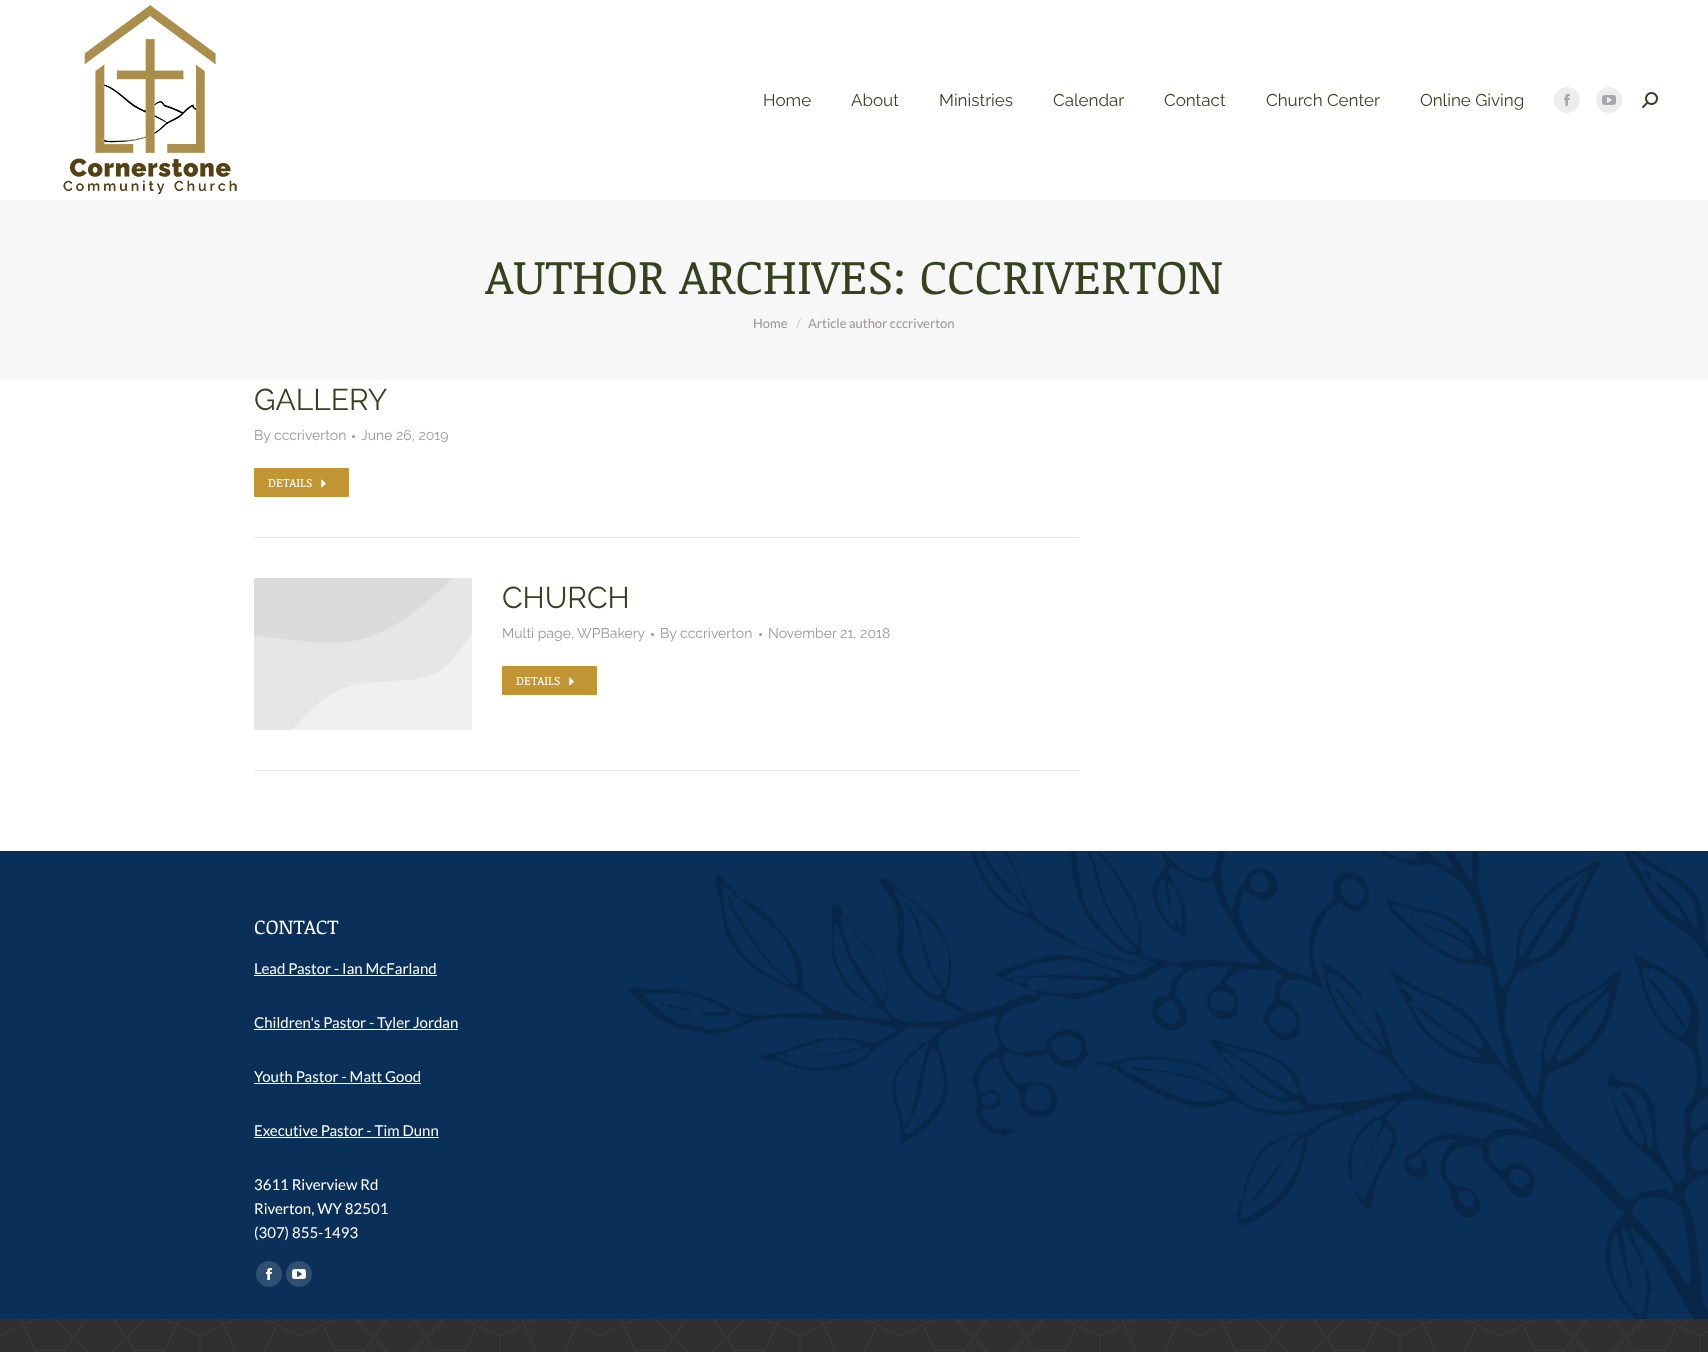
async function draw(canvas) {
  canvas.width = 1708
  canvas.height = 1352
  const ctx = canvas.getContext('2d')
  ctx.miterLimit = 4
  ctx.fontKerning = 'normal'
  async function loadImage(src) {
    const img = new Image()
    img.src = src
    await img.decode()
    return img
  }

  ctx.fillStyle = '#353535'
  ctx.fillRect(0, 0, 1708, 1352)
  ctx.drawImage(await loadImage('image0.png'), 0, 1319, 1708, 33)
  ctx.fillStyle = '#fff'
  ctx.fillRect(0, 0, 1708, 851)
  ctx.drawImage(await loadImage('image1.png'), 63, 5, 174, 189)
  ctx.font = '100 17px Raleway'
  ctx.fillStyle = '#34421e'
  ctx.fillText('Home', 763, 106)
  ctx.fillText('About', 851, 106)
  ctx.fillText('Ministries', 939, 106)
  ctx.fillText('Calendar', 1053, 106)
  ctx.fillText('Contact', 1164, 106)
  ctx.fillText('Church Center', 1266, 106)
  ctx.fillText('Online Giving', 1420, 106)
  ctx.fillStyle = '#ededee'
  ctx.beginPath()
  ctx.arc(1567, 100, 13, 0, 2 * Math.PI)
  ctx.fill()
  ctx.drawImage(await loadImage('image2.png'), 1564, 94, 6, 12)
  ctx.beginPath()
  ctx.arc(1609, 100, 13, 0, 2 * Math.PI)
  ctx.fill()
  ctx.drawImage(await loadImage('image3.png'), 1602, 95, 14, 10)
  ctx.drawImage(await loadImage('image4.png'), 1642, 92, 16, 16)
  ctx.fillStyle = '#f7f7f7'
  ctx.fillRect(0, 200, 1708, 180)
  ctx.font = '48px Noticia Text'
  ctx.fillStyle = '#34421e'
  ctx.fillText('AUTHOR ARCHIVES: CCCRIVERTON', 485, 294)
  ctx.font = '13px Lato'
  ctx.fillStyle = '#9a9891'
  ctx.fillText('Home', 753, 328)
  ctx.fillStyle = '#c9c8c4'
  ctx.fillText('/', 796, 328)
  ctx.fillStyle = '#9a9891'
  ctx.fillText('Article author cccriverton', 808, 328)
  ctx.fillStyle = '#e7e7e7'
  ctx.fillRect(254, 537, 825, 1)
  ctx.font = '100 30px Raleway'
  ctx.fillStyle = '#34421e'
  ctx.fillText('GALLERY', 254, 410)
  ctx.font = '100 14px Raleway'
  ctx.fillStyle = '#9a9891'
  ctx.fillText('By cccriverton', 254, 440)
  ctx.beginPath()
  ctx.arc(353.5, 436.5, 1.5, 0, 2 * Math.PI)
  ctx.fill()
  ctx.fillText('June 26, 2019', 361, 440)
  ctx.fillStyle = '#c19434'
  ctx.beginPath()
  ctx.roundRect(254, 468, 95, 29, 1)
  ctx.fill()
  ctx.font = '12px Noticia Text'
  ctx.fillStyle = '#fff'
  ctx.fillText('DETAILS', 268, 487)
  ctx.drawImage(await loadImage('image5.png'), 321, 479, 5, 9)
  ctx.fillStyle = '#e7e7e7'
  ctx.fillRect(254, 770, 825, 1)
  ctx.drawImage(await loadImage('image6.png'), 254, 578, 218, 152)
  ctx.font = '100 30px Raleway'
  ctx.fillStyle = '#34421e'
  ctx.fillText('CHURCH', 502, 608)
  ctx.font = '100 14px Raleway'
  ctx.fillStyle = '#9a9891'
  ctx.fillText('Multi page, WPBakery', 502, 638)
  ctx.beginPath()
  ctx.arc(652.5, 634.5, 1.5, 0, 2 * Math.PI)
  ctx.fill()
  ctx.fillText('By cccriverton', 660, 638)
  ctx.beginPath()
  ctx.arc(760.5, 634.5, 1.5, 0, 2 * Math.PI)
  ctx.fill()
  ctx.fillText('November 21, 2018', 768, 638)
  ctx.fillStyle = '#c19434'
  ctx.beginPath()
  ctx.roundRect(502, 666, 95, 29, 1)
  ctx.fill()
  ctx.font = '12px Noticia Text'
  ctx.fillStyle = '#fff'
  ctx.fillText('DETAILS', 516, 685)
  ctx.drawImage(await loadImage('image5.png'), 569, 677, 5, 9)
  ctx.fillStyle = '#0a3059'
  ctx.fillRect(0, 851, 1708, 468)
  ctx.drawImage(await loadImage('image7.png'), 629, 851, 1079, 468)
  ctx.font = '20px Noticia Text'
  ctx.fillStyle = '#fff'
  ctx.fillText('CONTACT', 254, 934)
  ctx.font = '15px Lato'
  ctx.fillText('Lead Pastor - Ian McFarland', 254, 974)
  ctx.fillRect(254, 975, 183, 1)
  ctx.fillRect(254, 1029, 204, 1)
  ctx.fillText('Children\'s Pastor - Tyler Jordan', 254, 1028)
  ctx.fillText('Youth Pastor - Matt Good', 254, 1082)
  ctx.fillRect(254, 1083, 167, 1)
  ctx.fillText('Executive Pastor - Tim Dunn', 254, 1136)
  ctx.fillRect(254, 1137, 185, 1)
  ctx.fillText('3611 Riverview Rd', 254, 1190)
  ctx.fillText('Riverton, WY 82501', 254, 1214)
  ctx.fillText('(307) 855-1493', 254, 1238)
  ctx.fillStyle = '#2f4f72'
  ctx.beginPath()
  ctx.arc(269, 1274, 13, 0, 2 * Math.PI)
  ctx.fill()
  ctx.drawImage(await loadImage('image8.png'), 266, 1268, 6, 12)
  ctx.beginPath()
  ctx.arc(299, 1274, 13, 0, 2 * Math.PI)
  ctx.fill()
  ctx.drawImage(await loadImage('image9.png'), 292, 1269, 14, 10)
}

draw(document.querySelector('canvas'))
